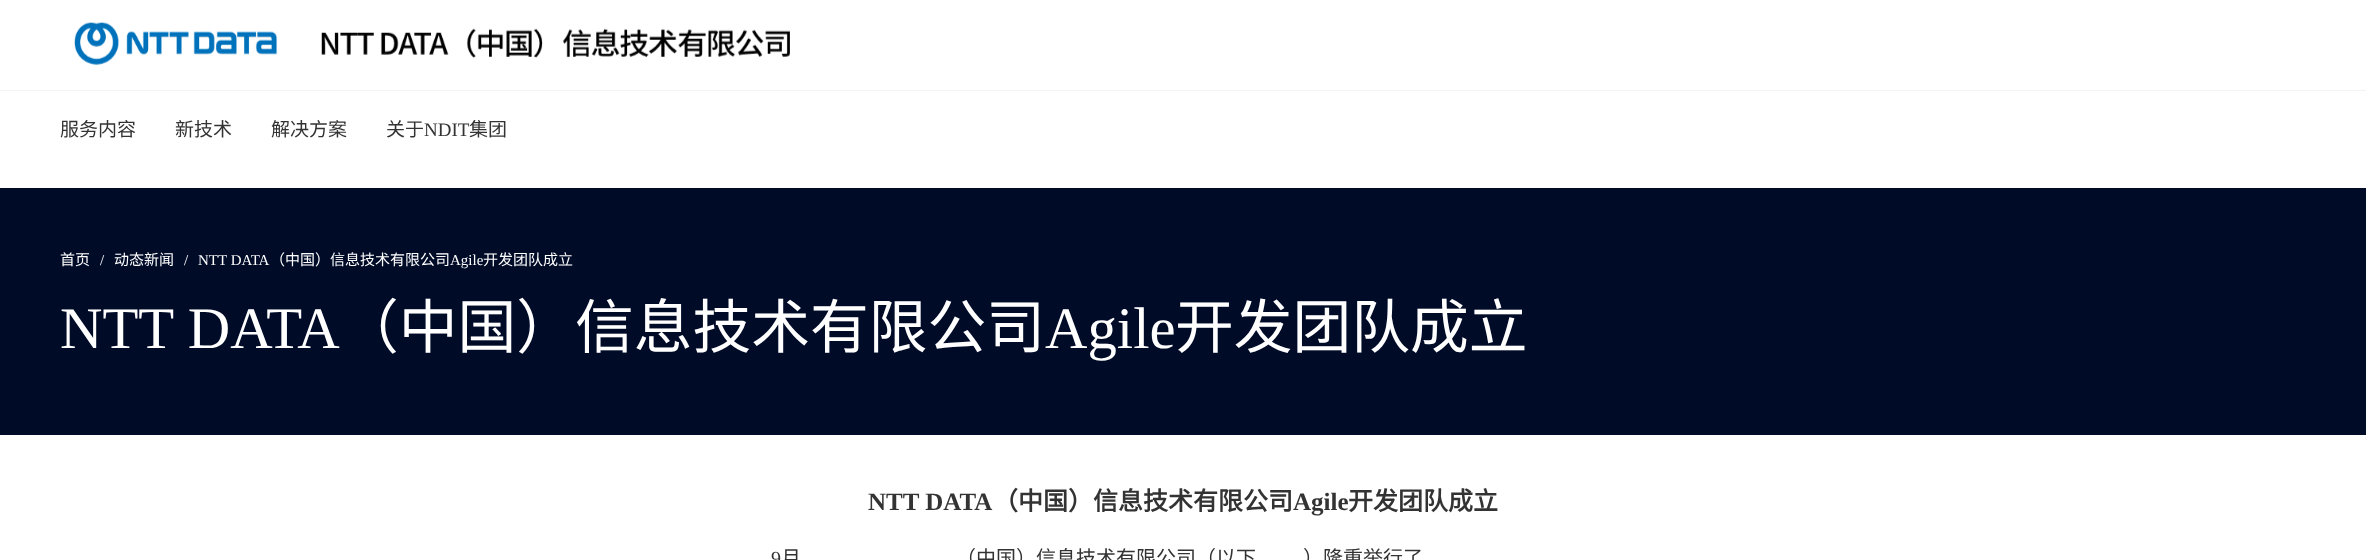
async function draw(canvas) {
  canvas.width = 2366
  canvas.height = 560
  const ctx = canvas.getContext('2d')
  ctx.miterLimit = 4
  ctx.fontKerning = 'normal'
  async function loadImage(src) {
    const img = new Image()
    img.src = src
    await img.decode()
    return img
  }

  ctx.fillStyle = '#fff'
  ctx.fillRect(0, 0, 2366, 560)
  ctx.drawImage(await loadImage('image0.png'), 74, 22, 204, 43)
  ctx.drawImage(await loadImage('image1.png'), 321, 28, 469, 30)
  ctx.fillStyle = '#f3f3f3'
  ctx.fillRect(0, 90, 2366, 1)
  ctx.font = '19px Noto Sans CJK SC'
  ctx.fillStyle = '#333'
  ctx.fillText('服务内容', 60, 136)
  ctx.fillText('新技术', 175, 136)
  ctx.fillText('解决方案', 271, 136)
  ctx.fillText('关于', 386, 136)
  ctx.font = '19px Liberation Serif'
  ctx.fillText('NDIT', 424, 136)
  ctx.font = '19px Noto Sans CJK SC'
  ctx.fillText('集团', 469, 136)
  ctx.fillStyle = '#000b28'
  ctx.fillRect(0, 188, 2366, 247)
  ctx.font = '15px Noto Sans CJK SC'
  ctx.fillStyle = '#fff'
  ctx.fillText('首页', 60, 265)
  ctx.font = '15px Liberation Serif'
  ctx.fillText('/', 100, 265)
  ctx.font = '15px Noto Sans CJK SC'
  ctx.fillText('动态新闻', 114, 265)
  ctx.font = '15px Liberation Serif'
  ctx.fillText('/', 184, 265)
  ctx.fillText('NTT DATA', 198, 265)
  ctx.font = '15px Noto Sans CJK SC'
  ctx.fillText('（中国）信息技术有限公司', 270, 265)
  ctx.font = '15px Liberation Serif'
  ctx.fillText('Agile', 450, 265)
  ctx.font = '15px Noto Sans CJK SC'
  ctx.fillText('开发团队成立', 483, 265)
  ctx.font = '58.75px Liberation Serif'
  ctx.fillText('NTT DATA', 60, 348)
  ctx.font = '58.75px Noto Sans CJK SC'
  ctx.fillText('（中国）信息技术有限公司', 340, 348)
  ctx.font = '58.75px Liberation Serif'
  ctx.fillText('Agile', 1045, 348)
  ctx.font = '58.75px Noto Sans CJK SC'
  ctx.fillText('开发团队成立', 1175, 348)
  ctx.font = 'bold 25px Liberation Serif'
  ctx.fillStyle = '#333'
  ctx.fillText('NTT DATA', 868, 510)
  ctx.font = 'bold 25px Noto Sans CJK SC'
  ctx.fillText('（中国）信息技术有限公司', 993, 510)
  ctx.font = 'bold 25px Liberation Serif'
  ctx.fillText('Agile', 1293, 510)
  ctx.font = 'bold 25px Noto Sans CJK SC'
  ctx.fillText('开发团队成立', 1348, 510)
  ctx.font = '20px Liberation Serif'
  ctx.fillText('9', 771, 565)
  ctx.font = '20px Noto Sans CJK SC'
  ctx.fillText('月', 781, 565)
  ctx.fillText('（中国）信息技术有限公司（以下', 956, 565)
  ctx.fillText('）隆重举行了', 1303, 565)
}

draw(document.querySelector('canvas'))
